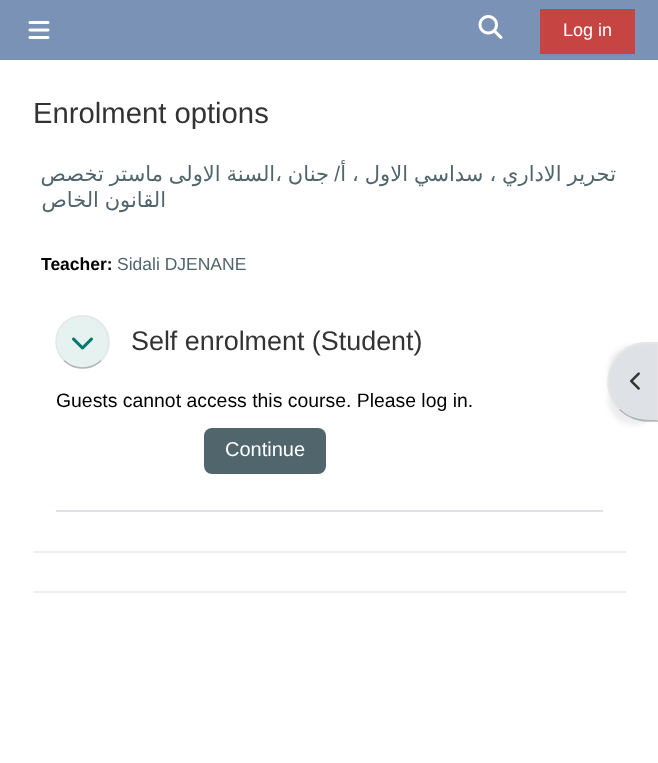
async function draw(canvas) {
  canvas.width = 658
  canvas.height = 763
  const ctx = canvas.getContext('2d')
  ctx.miterLimit = 4
  ctx.fontKerning = 'normal'
  async function loadImage(src) {
    const img = new Image()
    img.src = src
    await img.decode()
    return img
  }

  ctx.fillStyle = '#fff'
  ctx.fillRect(0, 0, 658, 763)
  ctx.fillStyle = '#7b92b7'
  ctx.fillRect(0, 0, 658, 60)
  ctx.drawImage(await loadImage('image0.png'), 28, 21, 22, 18)
  ctx.drawImage(await loadImage('image1.png'), 478, 15, 25, 24)
  ctx.fillStyle = '#c64543'
  ctx.fillRect(540, 9, 95, 45)
  ctx.font = '18px Liberation Sans'
  ctx.fillStyle = '#fff'
  ctx.fillText('Log in', 563, 36)
  ctx.font = '29.25px Liberation Sans'
  ctx.fillStyle = '#333'
  ctx.fillText('Enrolment options', 33, 123)
  ctx.wordSpacing = '-0.75px'
  ctx.direction = 'rtl'
  ctx.font = '21px DejaVu Sans'
  ctx.fillStyle = '#51666c'
  ctx.fillText('جنان ،السنة الاولى ماستر تخصص', 329, 181)
  ctx.wordSpacing = '0px'
  ctx.font = '21px Liberation Sans'
  ctx.fillText('/', 340, 181)
  ctx.wordSpacing = '-0.75px'
  ctx.font = '21px DejaVu Sans'
  ctx.fillText('تحرير الاداري ، سداسي الاول ، أ', 616, 181)
  ctx.wordSpacing = '-1px'
  ctx.fillText('القانون الخاص', 166, 207)
  ctx.wordSpacing = '0px'
  ctx.direction = 'ltr'
  ctx.font = 'bold 17.5px Liberation Sans'
  ctx.fillStyle = '#000'
  ctx.fillText('Teacher:', 41, 270)
  ctx.font = '17.5px Liberation Sans'
  ctx.fillStyle = '#51666c'
  ctx.fillText('Sidali DJENANE', 117, 270)
  ctx.fillStyle = '#dee2e6'
  ctx.fillRect(56, 510, 547, 2)
  ctx.fillStyle = '#e6f2f0'
  ctx.beginPath()
  ctx.arc(83, 342, 27, 0, 2 * Math.PI)
  ctx.fill()
  ctx.beginPath()
  ctx.moveTo(101, 360.5)
  ctx.bezierCurveTo(91, 370.5, 74, 370.5, 64, 360.5)
  ctx.strokeStyle = '#b3b3b3'
  ctx.lineWidth = 1.5
  ctx.stroke()
  ctx.beginPath()
  ctx.moveTo(64, 360.5)
  ctx.bezierCurveTo(59, 355.5, 56, 349, 56, 342)
  ctx.bezierCurveTo(56, 310.5, 102, 306, 108, 337)
  ctx.bezierCurveTo(110, 345.5, 107, 354.5, 101, 360.5)
  ctx.strokeStyle = '#e6e6e6'
  ctx.stroke()
  ctx.drawImage(await loadImage('image2.png'), 72, 337, 21, 13)
  ctx.font = '26.9px Liberation Sans'
  ctx.fillStyle = '#333'
  ctx.fillText('Self enrolment (Student)', 131, 350)
  ctx.font = '19.4px Liberation Sans'
  ctx.fillStyle = '#000'
  ctx.fillText('Guests cannot access this course. Please log in.', 56, 407)
  ctx.fillStyle = '#51666c'
  ctx.beginPath()
  ctx.roundRect(204, 428, 122, 46, 8)
  ctx.fill()
  ctx.font = '20px Liberation Sans'
  ctx.fillStyle = '#fff'
  ctx.fillText('Continue', 225, 456)
  ctx.fillStyle = '#eee'
  ctx.fillRect(33, 551, 593, 2)
  ctx.fillRect(33, 591, 593, 2)
  ctx.fillStyle = '#00000012'
  ctx.filter = 'blur(2.5px)'
  ctx.beginPath()
  ctx.roundRect(608, 345, 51, 80, 40)
  ctx.fill()
  ctx.filter = 'none'
  ctx.fillStyle = '#dee2e6'
  ctx.beginPath()
  ctx.moveTo(648, 342)
  ctx.lineTo(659, 342)
  ctx.lineTo(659, 422)
  ctx.lineTo(648, 422)
  ctx.bezierCurveTo(626, 422, 608, 404, 608, 382)
  ctx.bezierCurveTo(608, 360, 626, 342, 648, 342)
  ctx.closePath()
  ctx.fill()
  ctx.fillStyle = '#e6e6e6'
  ctx.beginPath()
  ctx.moveTo(647, 342)
  ctx.bezierCurveTo(635, 342, 625.5, 346.5, 619, 353.5)
  ctx.lineTo(620.5, 355)
  ctx.bezierCurveTo(631, 344, 642.5, 344, 656.5, 344)
  ctx.lineTo(658, 342.5)
  ctx.lineTo(658, 342)
  ctx.closePath()
  ctx.fill()
  ctx.beginPath()
  ctx.moveTo(658, 342)
  ctx.lineTo(658, 421)
  ctx.lineTo(657, 420)
  ctx.lineTo(657, 344)
  ctx.lineTo(656, 344)
  ctx.closePath()
  ctx.fill()
  ctx.fillStyle = '#b3b3b3'
  ctx.beginPath()
  ctx.moveTo(644.5, 421.5)
  ctx.bezierCurveTo(635.5, 420.5, 626, 416.5, 619, 410)
  ctx.lineTo(620, 409)
  ctx.bezierCurveTo(630.5, 419.5, 643, 420, 657, 420)
  ctx.lineTo(658, 421)
  ctx.lineTo(658, 421.5)
  ctx.closePath()
  ctx.fill()
  ctx.fillStyle = '#e6e6e6'
  ctx.beginPath()
  ctx.moveTo(619, 353)
  ctx.bezierCurveTo(604, 368, 603, 395, 619, 410)
  ctx.lineTo(620, 409)
  ctx.bezierCurveTo(605, 394, 606, 369, 620, 355)
  ctx.closePath()
  ctx.fill()
  ctx.drawImage(await loadImage('image3.png'), 630, 372, 10, 18)
}

draw(document.querySelector('canvas'))
